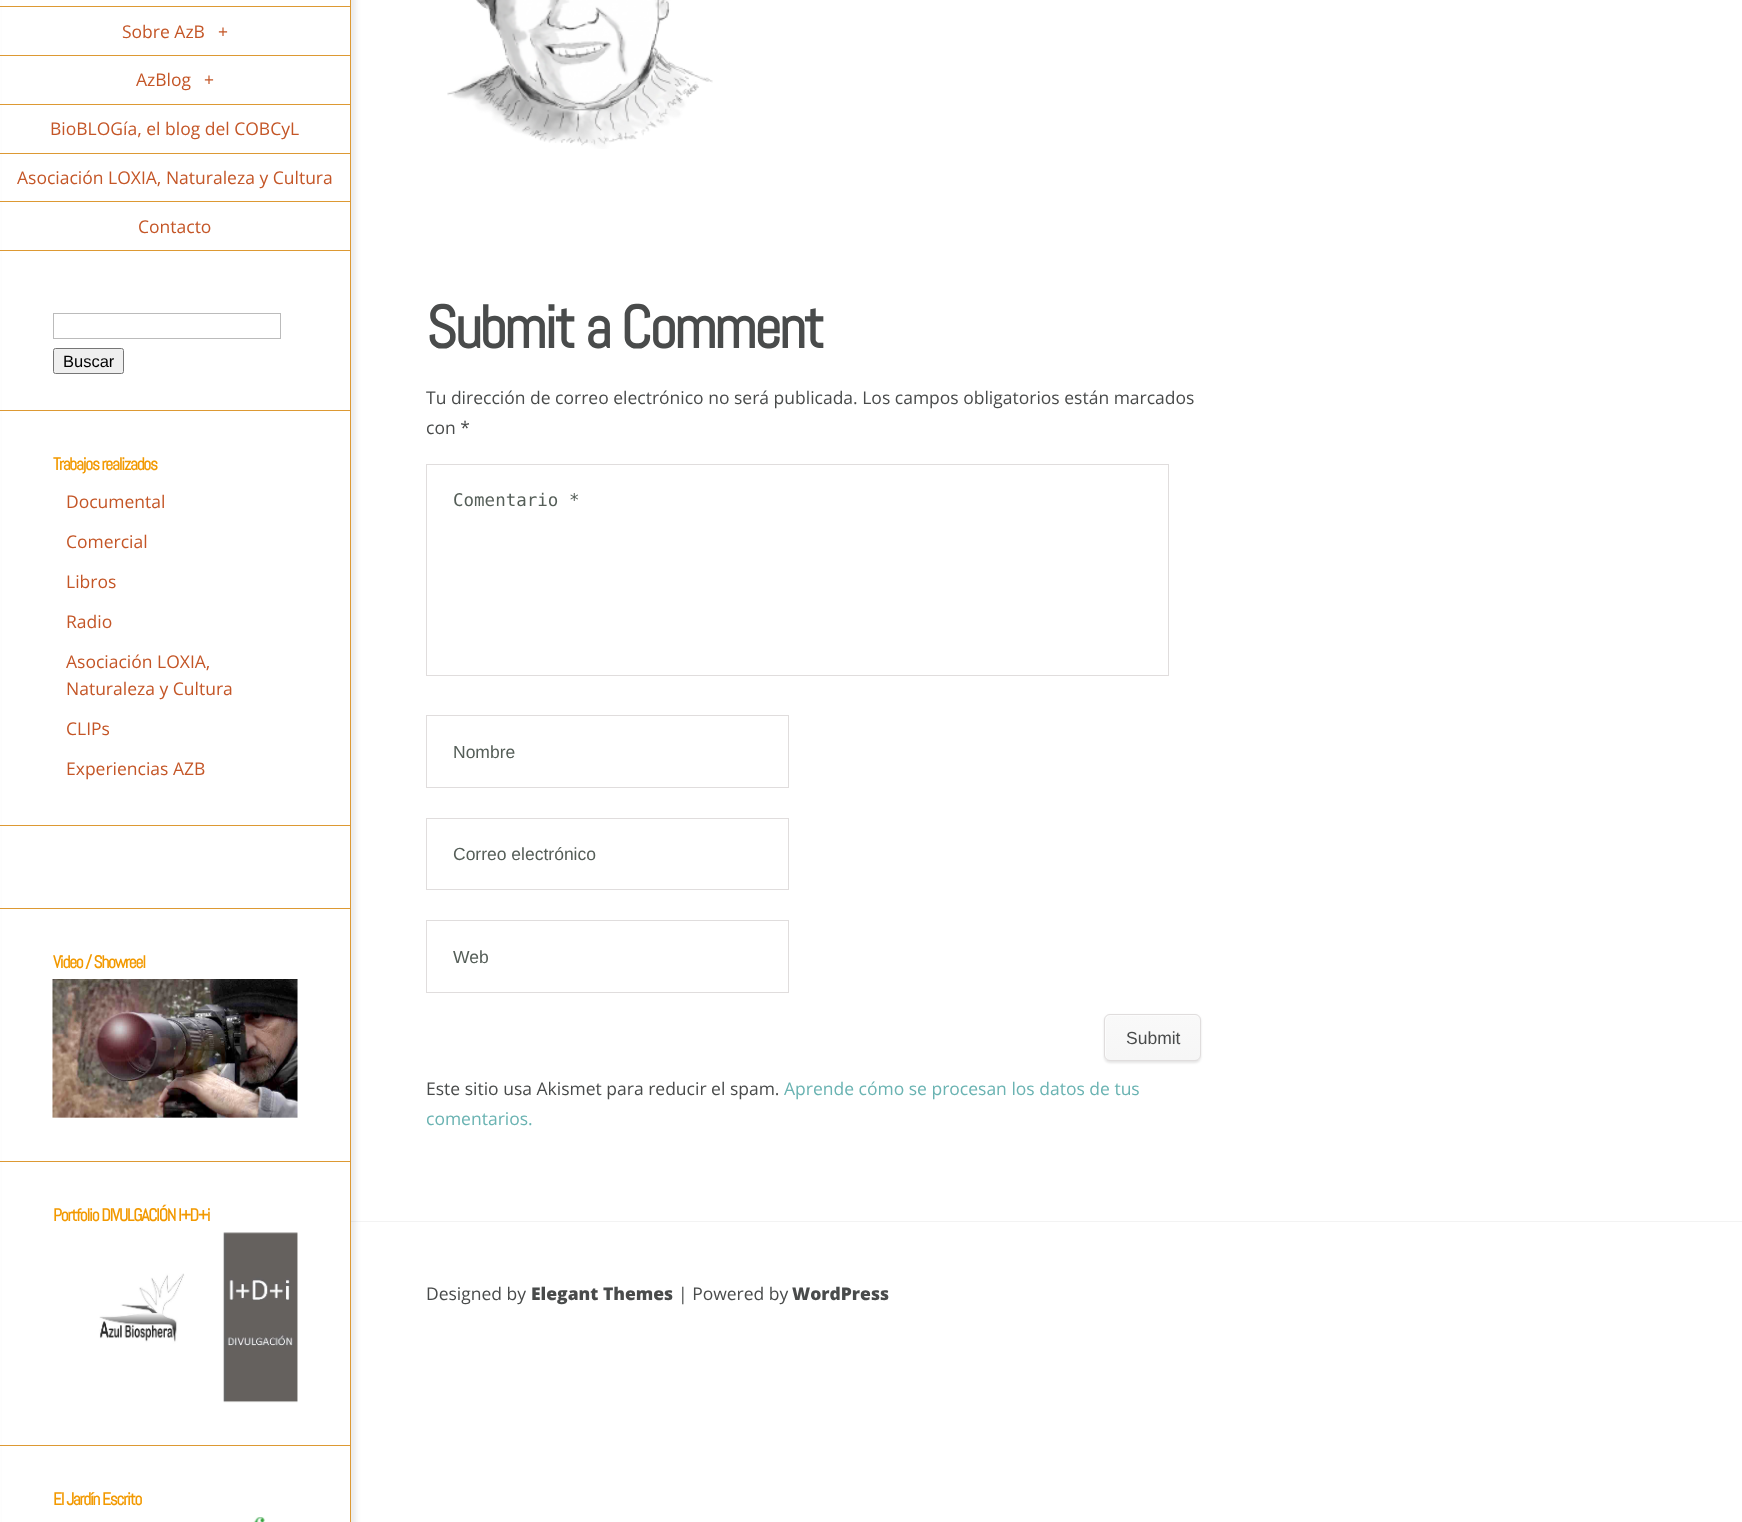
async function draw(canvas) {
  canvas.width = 1742
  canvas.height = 1522
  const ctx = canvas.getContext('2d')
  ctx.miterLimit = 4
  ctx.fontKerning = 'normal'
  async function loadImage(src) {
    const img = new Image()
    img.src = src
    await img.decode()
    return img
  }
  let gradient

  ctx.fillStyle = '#fff'
  ctx.fillRect(0, 0, 1742, 1522)
  ctx.fillStyle = '#f3f3f3'
  ctx.fillRect(351, 1221, 1391, 1)
  ctx.fillStyle = '#00000014'
  ctx.filter = 'blur(2.5px)'
  ctx.beginPath()
  ctx.rect(5, -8, 351, 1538)
  ctx.fill()
  ctx.filter = 'none'
  ctx.fillStyle = '#fff'
  ctx.fillRect(2, 0, 348, 1522)
  ctx.fillStyle = '#d93'
  ctx.fillRect(350, 0, 1, 1522)
  ctx.fillRect(0, 6, 350, 1)
  ctx.fillRect(0, 55, 350, 1)
  ctx.font = '17.5px Open Sans'
  ctx.fillStyle = '#c45627'
  ctx.fillText('Sobre AzB', 122, 38)
  ctx.fillText('+', 218, 38)
  ctx.fillStyle = '#d93'
  ctx.fillRect(0, 104, 350, 1)
  ctx.fillStyle = '#c45627'
  ctx.fillText('AzBlog', 136, 86)
  ctx.fillText('+', 204, 86)
  ctx.fillStyle = '#d93'
  ctx.fillRect(0, 153, 350, 1)
  ctx.fillStyle = '#c45627'
  ctx.fillText('BioBLOGía, el blog del COBCyL', 50, 135)
  ctx.fillStyle = '#d93'
  ctx.fillRect(0, 201, 350, 1)
  ctx.fillStyle = '#c45627'
  ctx.fillText('Asociación LOXIA, Naturaleza y Cultura', 17, 184)
  ctx.fillStyle = '#d93'
  ctx.fillRect(0, 250, 350, 1)
  ctx.fillStyle = '#c45627'
  ctx.fillText('Contacto', 138, 233)
  ctx.fillStyle = '#d93'
  ctx.fillRect(0, 410, 350, 1)
  ctx.strokeStyle = '#bbb'
  ctx.strokeRect(53.5, 313.5, 227, 25)
  ctx.fillStyle = '#efefef'
  ctx.beginPath()
  ctx.roundRect(53.5, 348.5, 70, 25, 2)
  ctx.fill()
  ctx.strokeStyle = '#767676'
  ctx.stroke()
  ctx.font = '16.5px Liberation Sans'
  ctx.fillStyle = '#000'
  ctx.fillText('Buscar', 63, 367)
  ctx.fillStyle = '#d93'
  ctx.fillRect(0, 825, 350, 1)
  ctx.letterSpacing = '-1.25px'
  ctx.font = 'bold 17.5px Abel'
  ctx.fillStyle = '#f29900'
  ctx.fillText('Trabajos realizados', 53, 470)
  ctx.letterSpacing = '0px'
  ctx.font = '17.5px Open Sans'
  ctx.fillStyle = '#c45627'
  ctx.fillText('Documental', 66, 508)
  ctx.fillText('Comercial', 66, 548)
  ctx.fillText('Libros', 66, 588)
  ctx.fillText('Radio', 66, 628)
  ctx.fillText('Asociación LOXIA,', 66, 668)
  ctx.fillText('Naturaleza y Cultura', 66, 695)
  ctx.fillText('CLIPs', 66, 735)
  ctx.fillText('Experiencias AZB', 66, 775)
  ctx.fillStyle = '#d93'
  ctx.fillRect(0, 908, 350, 1)
  ctx.fillRect(0, 1161, 350, 1)
  ctx.letterSpacing = '-1.25px'
  ctx.font = 'bold 17.5px Abel'
  ctx.fillStyle = '#f29900'
  ctx.fillText('Video / Showreel', 53, 968)
  ctx.drawImage(await loadImage('image0.png'), 52, 979, 246, 139)
  ctx.fillStyle = '#d93'
  ctx.fillRect(0, 1445, 350, 1)
  ctx.fillStyle = '#f29900'
  ctx.fillText('Portfolio DIVULGACIÓN I+D+i', 53, 1221)
  ctx.drawImage(await loadImage('image1.png'), 99, 1232, 199, 171)
  ctx.fillText('El Jardín Escrito', 53, 1505)
  ctx.drawImage(await loadImage('image2.png'), 253, 1517, 12, 5)
  ctx.drawImage(await loadImage('image3.png'), 447, 0, 266, 149)
  ctx.letterSpacing = '-2.5px'
  ctx.font = 'bold 60px Abel'
  ctx.fillStyle = '#494b4b'
  ctx.fillText('Submit a Comment', 426, 348)
  ctx.letterSpacing = '0px'
  ctx.font = '17.5px Open Sans'
  ctx.fillText('Tu dirección de correo electrónico no será publicada. Los campos obligatorios están marcados', 426, 404)
  ctx.fillText('con *', 426, 434)
  ctx.strokeStyle = '#e0dddd'
  ctx.strokeRect(426.5, 464.5, 742, 211)
  ctx.font = '17.5px DejaVu Sans Mono'
  ctx.fillStyle = '#555e58'
  ctx.fillText('Comentario *', 453, 506)
  ctx.strokeRect(426.5, 715.5, 362, 72)
  ctx.font = '17.5px Liberation Sans'
  ctx.fillText('Nombre', 453, 758)
  ctx.strokeRect(426.5, 818.5, 362, 71)
  ctx.fillText('Correo electrónico', 453, 860)
  ctx.strokeRect(426.5, 920.5, 362, 72)
  ctx.fillText('Web', 453, 963)
  ctx.fillStyle = '#0000001a'
  ctx.filter = 'blur(1px)'
  ctx.beginPath()
  ctx.roundRect(1104, 1015, 97, 48, 6)
  ctx.fill()
  ctx.filter = 'none'
  ctx.save()
  ctx.beginPath()
  ctx.roundRect(1104, 1014, 97, 47, 6)
  ctx.clip()
  gradient = ctx.createLinearGradient(1153, 1015, 1153, 1060)
  gradient.addColorStop(0, '#f9f9f9')
  gradient.addColorStop(1, '#f6f6f6')
  gradient.addColorStop(1, '#f2f2f2')
  ctx.fillStyle = gradient
  ctx.fillRect(1104, 1015, 97, 45)
  ctx.restore()
  ctx.fillStyle = '#fcfcfc'
  ctx.beginPath()
  ctx.moveTo(1111, 1016)
  ctx.lineTo(1196, 1016)
  ctx.lineTo(1199, 1017)
  ctx.bezierCurveTo(1198, 1016, 1196, 1015, 1195, 1015)
  ctx.lineTo(1110, 1015)
  ctx.bezierCurveTo(1107, 1015, 1105, 1017, 1105, 1020)
  ctx.lineTo(1105, 1055)
  ctx.bezierCurveTo(1105, 1056, 1106, 1058, 1107, 1059)
  ctx.lineTo(1106, 1056)
  ctx.lineTo(1106, 1021)
  ctx.bezierCurveTo(1106, 1018, 1108, 1016, 1111, 1016)
  ctx.closePath()
  ctx.fill()
  ctx.beginPath()
  ctx.roundRect(1104.5, 1014.5, 96, 46, 5.5)
  ctx.stroke()
  ctx.fillStyle = '#494b4b'
  ctx.fillText('Submit', 1126, 1044)
  ctx.font = '17.5px Open Sans'
  ctx.fillText('Este sitio usa Akismet para reducir el spam.', 426, 1095)
  ctx.fillStyle = '#6ab3b2'
  ctx.fillText('Aprende cómo se procesan los datos de tus', 784, 1095)
  ctx.fillText('comentarios.', 426, 1125)
  ctx.fillStyle = '#494b4b'
  ctx.fillText('Designed by', 426, 1300)
  ctx.font = '800 17.5px Open Sans'
  ctx.fillText('Elegant Themes', 531, 1300)
  ctx.font = '17.5px Open Sans'
  ctx.fillText('| Powered by', 678, 1300)
  ctx.font = '800 17.5px Open Sans'
  ctx.fillText('WordPress', 792, 1300)
}

draw(document.querySelector('canvas'))
